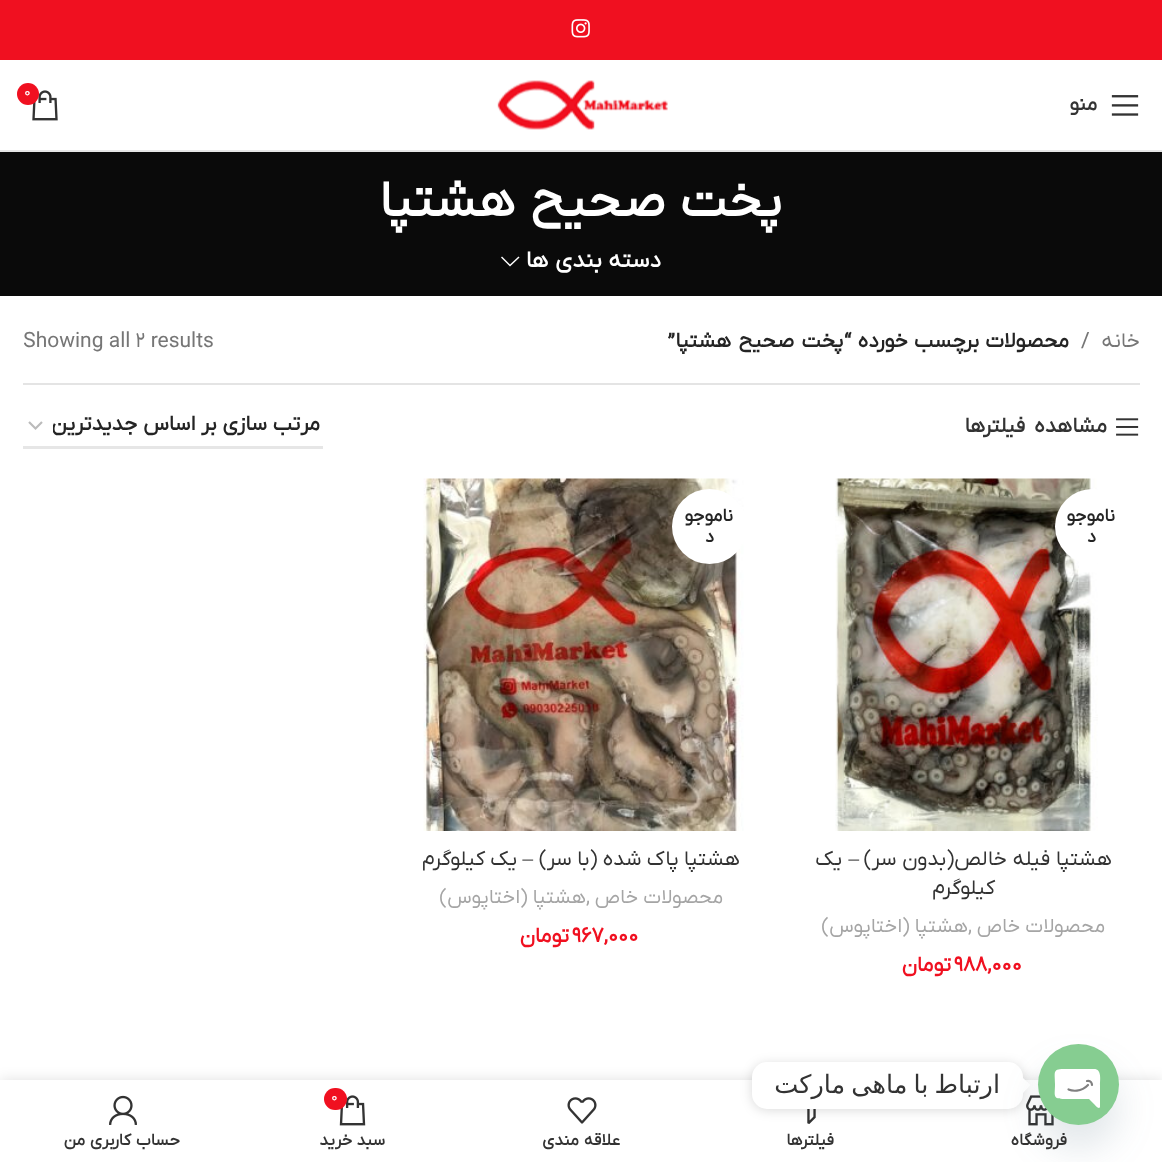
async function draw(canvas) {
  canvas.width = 1162
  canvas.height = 1162
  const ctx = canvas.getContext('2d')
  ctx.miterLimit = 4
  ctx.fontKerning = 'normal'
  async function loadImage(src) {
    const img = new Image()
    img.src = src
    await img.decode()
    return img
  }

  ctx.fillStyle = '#fff'
  ctx.fillRect(0, 0, 1162, 1162)
  ctx.fillStyle = '#f01020'
  ctx.fillRect(0, 0, 1162, 60)
  ctx.drawImage(await loadImage('image0.png'), 571, 19, 19, 19)
  ctx.fillStyle = '#e6e6e6'
  ctx.fillRect(0, 150, 1162, 2)
  ctx.drawImage(await loadImage('image1.png'), 497, 80, 171, 50)
  ctx.drawImage(await loadImage('image2.png'), 32, 90, 26, 31)
  ctx.fillStyle = '#f01020'
  ctx.beginPath()
  ctx.arc(28, 94, 11, 0, 2 * Math.PI)
  ctx.fill()
  ctx.font = '14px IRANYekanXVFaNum'
  ctx.fillStyle = '#fff'
  ctx.fillText('0', 24, 96)
  ctx.drawImage(await loadImage('image3.png'), 1111, 95, 28, 21)
  ctx.direction = 'rtl'
  ctx.font = 'bold 20px IRANYekanXVFaNum'
  ctx.fillStyle = '#333'
  ctx.fillText('منو', 1097, 110)
  ctx.fillStyle = '#0a0a0a'
  ctx.fillRect(0, 152, 1162, 144)
  ctx.wordSpacing = '2px'
  ctx.font = 'bold 51px IRANYekanXVFaNum'
  ctx.fillStyle = '#fff'
  ctx.fillText('پخت صحیح هشتپا', 782, 216)
  ctx.wordSpacing = '1px'
  ctx.font = 'bold 23px IRANYekanXVFaNum'
  ctx.fillText('دسته بندی ها', 661, 267)
  ctx.beginPath()
  ctx.moveTo(518.5, 256.5)
  ctx.lineTo(510, 264.5)
  ctx.lineTo(502, 256.5)
  ctx.lineTo(501, 257.5)
  ctx.lineTo(510, 266.5)
  ctx.lineTo(519.5, 257.5)
  ctx.closePath()
  ctx.fill()
  ctx.fillStyle = '#e4e4e4'
  ctx.fillRect(23, 383, 1117, 2)
  ctx.wordSpacing = '0px'
  ctx.font = '21px IRANYekanXVFaNum'
  ctx.fillStyle = '#767676'
  ctx.fillText('خانه', 1140, 347)
  ctx.direction = 'ltr'
  ctx.fillText('/', 1081, 347)
  ctx.wordSpacing = '1px'
  ctx.direction = 'rtl'
  ctx.font = 'bold 21px IRANYekanXVFaNum'
  ctx.fillStyle = '#242424'
  ctx.fillText('محصولات برچسب خورده', 1069, 347)
  ctx.wordSpacing = '2px'
  ctx.fillText('“پخت صحیح هشتپا”', 851, 347)
  ctx.wordSpacing = '0px'
  ctx.direction = 'ltr'
  ctx.font = '21px IRANYekanXVFaNum'
  ctx.fillStyle = '#767676'
  ctx.fillText('Showing all 2 results', 23, 347)
  ctx.drawImage(await loadImage('image4.png'), 1116, 418, 23, 18)
  ctx.wordSpacing = '4px'
  ctx.direction = 'rtl'
  ctx.font = 'bold 21px IRANYekanXVFaNum'
  ctx.fillStyle = '#333'
  ctx.fillText('مشاهده فیلترها', 1107, 432)
  ctx.beginPath()
  ctx.moveTo(29, 422)
  ctx.lineTo(35.5, 428.5)
  ctx.lineTo(42, 422)
  ctx.strokeStyle = '#bbb'
  ctx.lineWidth = 2.2
  ctx.stroke()
  ctx.fillStyle = '#e6e6e6'
  ctx.fillRect(23, 446, 300, 3)
  ctx.save()
  ctx.beginPath()
  ctx.rect(53, 414, 267, 24)
  ctx.clip()
  ctx.wordSpacing = '0.5px'
  ctx.fillStyle = '#242424'
  ctx.fillText('مرتب سازی بر اساس جدیدترین', 320, 430)
  ctx.restore()
  ctx.drawImage(await loadImage('image5.png'), 835, 478, 263, 353)
  ctx.fillStyle = '#fff'
  ctx.beginPath()
  ctx.arc(1092.5, 526.5, 37.5, 0, 2 * Math.PI)
  ctx.fill()
  ctx.wordSpacing = '0px'
  ctx.font = 'bold 18px IRANYekanXVFaNum'
  ctx.fillStyle = '#242424'
  ctx.fillText('ناموجو', 1115, 521)
  ctx.fillText('د', 1096, 542)
  ctx.wordSpacing = '0.5px'
  ctx.font = '21px IRANYekanXVFaNum'
  ctx.fillStyle = '#333'
  ctx.fillText('هشتپا فیله خالص(بدون سر)', 1112, 865)
  ctx.wordSpacing = '0px'
  ctx.font = '21px Liberation Serif'
  ctx.fillText('–', 859, 865)
  ctx.font = '21px IRANYekanXVFaNum'
  ctx.fillText('یک', 842, 865)
  ctx.fillText('کیلوگرم', 995, 894)
  ctx.font = '20px IRANYekanXVFaNum'
  ctx.fillStyle = '#a5a5a5'
  ctx.fillText('محصولات خاص', 1105, 932)
  ctx.direction = 'ltr'
  ctx.fillText(',', 968, 932)
  ctx.direction = 'rtl'
  ctx.fillText('هشتپا (اختاپوس)', 968, 932)
  ctx.direction = 'ltr'
  ctx.font = 'bold 21px IRANYekanXVFaNum'
  ctx.fillStyle = '#f01020'
  ctx.fillText('988,000', 954, 971)
  ctx.direction = 'rtl'
  ctx.fillText('تومان', 951, 971)
  ctx.drawImage(await loadImage('image6.png'), 423, 478, 321, 353)
  ctx.fillStyle = '#fff'
  ctx.beginPath()
  ctx.arc(709.5, 526.5, 37.5, 0, 2 * Math.PI)
  ctx.fill()
  ctx.font = 'bold 18px IRANYekanXVFaNum'
  ctx.fillStyle = '#242424'
  ctx.fillText('ناموجو', 733, 521)
  ctx.fillText('د', 714, 542)
  ctx.font = '21px IRANYekanXVFaNum'
  ctx.fillStyle = '#333'
  ctx.fillText('هشتپا پاک شده (با سر)', 740, 865)
  ctx.font = '21px Liberation Serif'
  ctx.fillText('–', 533, 865)
  ctx.font = '21px IRANYekanXVFaNum'
  ctx.fillText('یک کیلوگرم', 517, 865)
  ctx.font = '20px IRANYekanXVFaNum'
  ctx.fillStyle = '#a5a5a5'
  ctx.fillText('محصولات خاص', 723, 903)
  ctx.direction = 'ltr'
  ctx.fillText(',', 586, 903)
  ctx.direction = 'rtl'
  ctx.fillText('هشتپا (اختاپوس)', 586, 903)
  ctx.direction = 'ltr'
  ctx.font = 'bold 21px IRANYekanXVFaNum'
  ctx.fillStyle = '#f01020'
  ctx.fillText('967,000', 572, 942)
  ctx.direction = 'rtl'
  ctx.fillText('تومان', 569, 942)
  ctx.fillStyle = '#0000001f'
  ctx.filter = 'blur(7px)'
  ctx.beginPath()
  ctx.rect(0, 1080, 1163, 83)
  ctx.fill()
  ctx.filter = 'none'
  ctx.fillStyle = '#fff'
  ctx.fillRect(0, 1080, 1162, 82)
  ctx.drawImage(await loadImage('image7.png'), 1026, 1095, 28, 31)
  ctx.drawImage(await loadImage('image8.png'), 807, 1109, 9, 15)
  ctx.fillStyle = '#00000026'
  ctx.filter = 'blur(6px)'
  ctx.beginPath()
  ctx.roundRect(752, 1064, 271, 46, 15)
  ctx.fill()
  ctx.filter = 'none'
  ctx.fillStyle = '#fff'
  ctx.beginPath()
  ctx.roundRect(752, 1062, 271, 47, 15)
  ctx.fill()
  ctx.beginPath()
  ctx.moveTo(1023, 1093)
  ctx.lineTo(1023, 1078)
  ctx.lineTo(1030.5, 1085)
  ctx.closePath()
  ctx.fill()
  ctx.fillStyle = '#49687e29'
  ctx.filter = 'blur(18px)'
  ctx.beginPath()
  ctx.roundRect(1038, 1068, 81, 81, 40.5)
  ctx.fill()
  ctx.filter = 'none'
  ctx.fillStyle = '#86cd91'
  ctx.beginPath()
  ctx.arc(1078.5, 1084.5, 40.5, 0, 2 * Math.PI)
  ctx.fill()
  ctx.fillStyle = '#fff'
  ctx.beginPath()
  ctx.moveTo(1094, 1069)
  ctx.lineTo(1066, 1069)
  ctx.bezierCurveTo(1052, 1069, 1055, 1071, 1055, 1084)
  ctx.bezierCurveTo(1055, 1096, 1052, 1099, 1065, 1099)
  ctx.lineTo(1089, 1099)
  ctx.lineTo(1095, 1105)
  ctx.bezierCurveTo(1095, 1105, 1099, 1110, 1100, 1107)
  ctx.lineTo(1100, 1085)
  ctx.bezierCurveTo(1100, 1080, 1102, 1069, 1094, 1069)
  ctx.closePath()
  ctx.fill()
  ctx.beginPath()
  ctx.moveTo(1068.5, 1089.5)
  ctx.bezierCurveTo(1072, 1091, 1081, 1092.5, 1088, 1085)
  ctx.moveTo(1092, 1085)
  ctx.bezierCurveTo(1092, 1083.5, 1091, 1080, 1087, 1081)
  ctx.strokeStyle = '#808080'
  ctx.lineCap = 'round'
  ctx.lineJoin = 'round'
  ctx.stroke()
  ctx.wordSpacing = '-2px'
  ctx.font = '25.5px DejaVu Sans'
  ctx.fillStyle = '#333'
  ctx.fillText('ارتباط با ماهی مارکت', 1000, 1093)
  ctx.wordSpacing = '0px'
  ctx.font = 'bold 16.5px IRANYekanXVFaNum'
  ctx.fillText('فروشگاه', 1067, 1145)
  ctx.fillText('فیلترها', 834, 1145)
  ctx.drawImage(await loadImage('image9.png'), 567, 1097, 30, 27)
  ctx.wordSpacing = '1px'
  ctx.fillText('علاقه مندی', 620, 1145)
  ctx.drawImage(await loadImage('image10.png'), 339, 1095, 27, 31)
  ctx.fillStyle = '#f01020'
  ctx.beginPath()
  ctx.roundRect(324, 1088, 23, 22, 11)
  ctx.fill()
  ctx.wordSpacing = '0px'
  ctx.direction = 'ltr'
  ctx.font = '14px IRANYekanXVFaNum'
  ctx.fillStyle = '#fff'
  ctx.fillText('0', 331, 1101)
  ctx.direction = 'rtl'
  ctx.font = 'bold 16.5px IRANYekanXVFaNum'
  ctx.fillStyle = '#333'
  ctx.fillText('سبد خرید', 385, 1145)
  ctx.drawImage(await loadImage('image11.png'), 109, 1095, 28, 30)
  ctx.wordSpacing = '1px'
  ctx.fillText('حساب کاربری من', 180, 1145)
}

draw(document.querySelector('canvas'))
